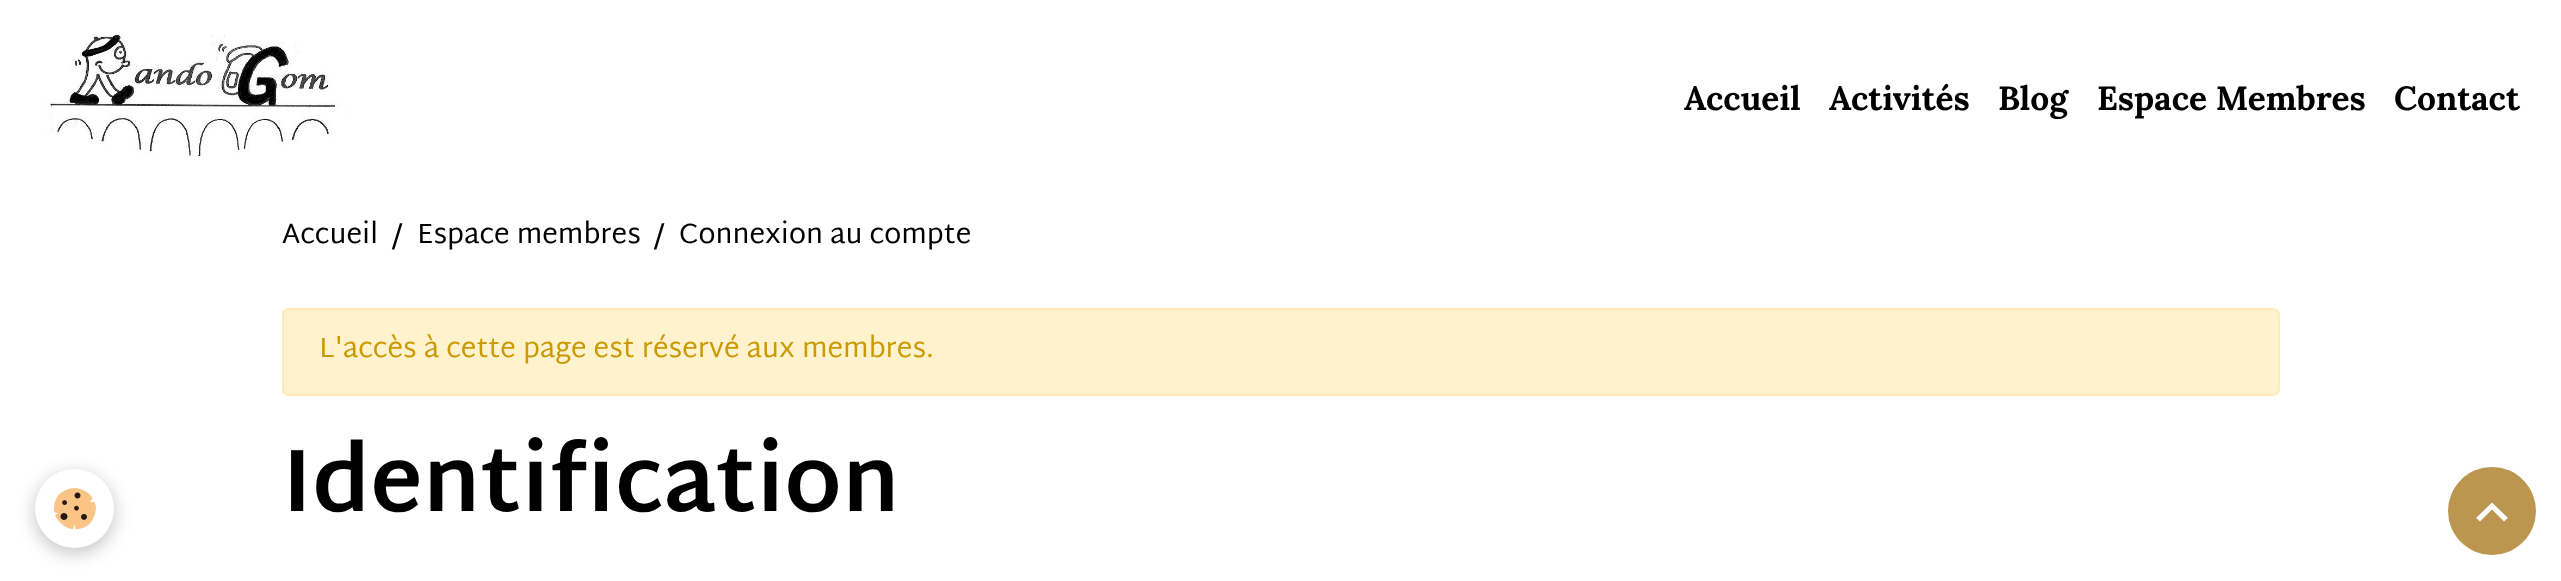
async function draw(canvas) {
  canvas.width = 2561
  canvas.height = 581
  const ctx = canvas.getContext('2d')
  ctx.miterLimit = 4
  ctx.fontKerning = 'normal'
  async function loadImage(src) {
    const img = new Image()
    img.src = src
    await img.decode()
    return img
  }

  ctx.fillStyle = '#fff'
  ctx.fillRect(0, 0, 2561, 581)
  ctx.drawImage(await loadImage('image0.png'), 46, 33, 304, 126)
  ctx.font = 'bold 33.5px Lora'
  ctx.fillStyle = '#000'
  ctx.fillText('Accueil', 1684, 110)
  ctx.fillText('Activités', 1829, 110)
  ctx.fillText('Blog', 1998, 110)
  ctx.fillText('Espace Membres', 2097, 110)
  ctx.fillText('Contact', 2394, 110)
  ctx.fillStyle = '#0000003d'
  ctx.filter = 'blur(9px)'
  ctx.beginPath()
  ctx.roundRect(35, 474, 79, 79, 39.5)
  ctx.fill()
  ctx.filter = 'none'
  ctx.fillStyle = '#fff'
  ctx.beginPath()
  ctx.arc(74.5, 508.5, 39.5, 0, 2 * Math.PI)
  ctx.fill()
  ctx.drawImage(await loadImage('image1.png'), 53, 488, 43, 42)
  ctx.font = '28px Martel Sans'
  ctx.fillStyle = '#000'
  ctx.fillText('Accueil', 282, 243)
  ctx.fillText('/', 392, 243)
  ctx.fillText('Espace membres', 417, 243)
  ctx.fillText('/', 654, 243)
  ctx.fillText('Connexion au compte', 679, 243)
  ctx.fillStyle = '#fff3cd'
  ctx.beginPath()
  ctx.roundRect(283, 309, 1996, 86, 6)
  ctx.fill()
  ctx.strokeStyle = '#ffecb5'
  ctx.lineWidth = 2
  ctx.stroke()
  ctx.fillStyle = '#cc9a06'
  ctx.fillText('L\'accès à cette page est réservé aux membres.', 319, 357)
  ctx.font = 'bold 89.5px Martel Sans'
  ctx.fillStyle = '#000'
  ctx.fillText('Identification', 282, 511)
  ctx.fillStyle = '#bc964f'
  ctx.beginPath()
  ctx.arc(2492, 511, 44, 0, 2 * Math.PI)
  ctx.fill()
  ctx.fillStyle = '#fff'
  ctx.beginPath()
  ctx.moveTo(2492, 502.5)
  ctx.lineTo(2508, 518)
  ctx.lineTo(2504, 521.5)
  ctx.lineTo(2492, 509.5)
  ctx.lineTo(2480, 521.5)
  ctx.lineTo(2476, 518)
  ctx.closePath()
  ctx.fill()
}

draw(document.querySelector('canvas'))
